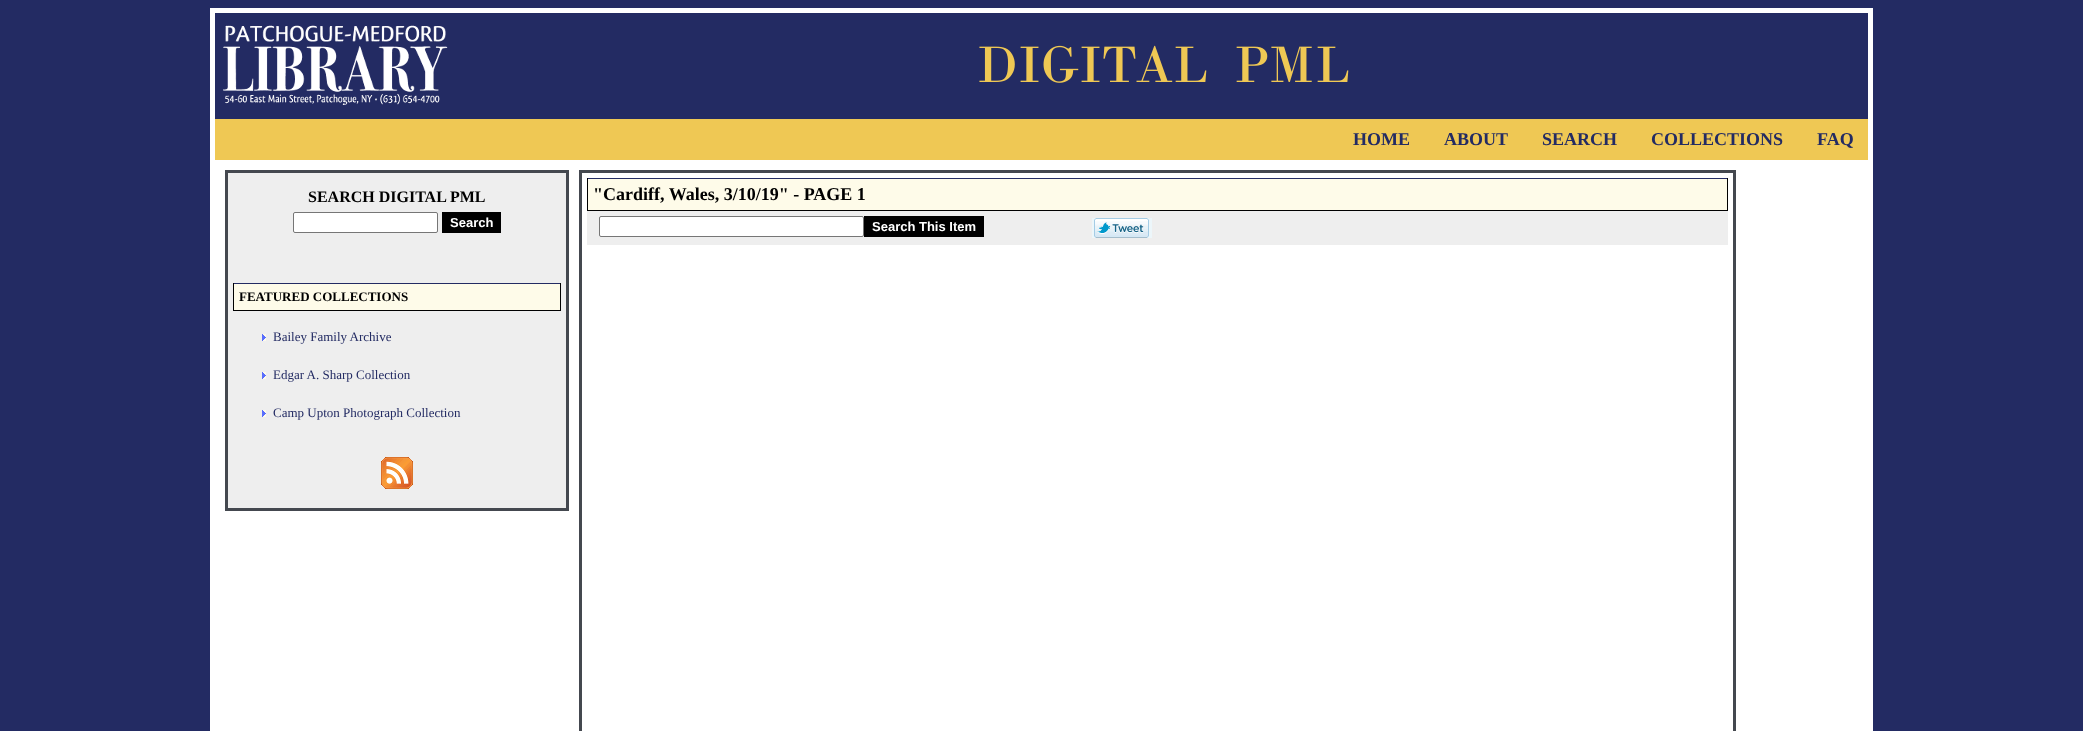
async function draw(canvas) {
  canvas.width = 2083
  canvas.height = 731
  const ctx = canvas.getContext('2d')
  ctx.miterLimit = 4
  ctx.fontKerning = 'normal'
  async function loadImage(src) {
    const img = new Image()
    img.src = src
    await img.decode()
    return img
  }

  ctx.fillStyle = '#232b63'
  ctx.fillRect(0, 0, 2083, 731)
  ctx.fillStyle = '#fff'
  ctx.fillRect(210, 8, 1663, 723)
  ctx.fillStyle = '#232b63'
  ctx.fillRect(215, 13, 1653, 106)
  ctx.drawImage(await loadImage('image0.png'), 223, 25, 225, 80)
  ctx.drawImage(await loadImage('image1.png'), 979, 45, 370, 38)
  ctx.fillStyle = '#efc854'
  ctx.fillRect(215, 119, 1653, 41)
  ctx.font = 'bold 18px Liberation Serif'
  ctx.fillStyle = '#232b63'
  ctx.fillText('HOME', 1353, 145)
  ctx.fillText('ABOUT', 1444, 145)
  ctx.fillText('SEARCH', 1542, 145)
  ctx.fillText('COLLECTIONS', 1651, 145)
  ctx.fillText('FAQ', 1817, 145)
  ctx.fillStyle = '#eee'
  ctx.beginPath()
  ctx.rect(226.5, 171.5, 341, 338)
  ctx.fill()
  ctx.strokeStyle = '#44484f'
  ctx.lineWidth = 3
  ctx.stroke()
  ctx.font = 'bold 16px Liberation Serif'
  ctx.fillStyle = '#000'
  ctx.fillText('SEARCH DIGITAL PML', 308, 202)
  ctx.fillStyle = '#fff'
  ctx.beginPath()
  ctx.roundRect(293.5, 212.5, 144, 20, 1.5)
  ctx.fill()
  ctx.strokeStyle = '#767676'
  ctx.lineWidth = 1
  ctx.stroke()
  ctx.fillStyle = '#000'
  ctx.fillRect(442, 212, 59, 21)
  ctx.font = 'bold 13px Liberation Sans'
  ctx.fillStyle = '#fff'
  ctx.fillText('Search', 450, 227)
  ctx.fillStyle = '#fefbe9'
  ctx.fillRect(234, 284, 326, 26)
  ctx.fillStyle = '#232b63'
  ctx.fillRect(233, 283, 328, 1)
  ctx.fillStyle = '#000'
  ctx.fillRect(560, 283, 1, 28)
  ctx.fillRect(233, 310, 328, 1)
  ctx.fillRect(233, 283, 1, 28)
  ctx.font = 'bold 13px Liberation Serif'
  ctx.fillText('FEATURED COLLECTIONS', 239, 301)
  ctx.drawImage(await loadImage('image2.png'), 262, 334, 4, 7)
  ctx.font = '13px Liberation Serif'
  ctx.fillStyle = '#232b63'
  ctx.fillText('Bailey Family Archive', 273, 341)
  ctx.drawImage(await loadImage('image2.png'), 262, 372, 4, 7)
  ctx.fillText('Edgar A. Sharp Collection', 273, 379)
  ctx.drawImage(await loadImage('image2.png'), 262, 410, 4, 7)
  ctx.fillText('Camp Upton Photograph Collection', 273, 417)
  ctx.drawImage(await loadImage('image3.png'), 381, 457, 32, 32)
  ctx.strokeStyle = '#44484f'
  ctx.lineWidth = 3
  ctx.strokeRect(580.5, 171.5, 1154, 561)
  ctx.fillStyle = '#fefbe9'
  ctx.fillRect(588, 179, 1139, 31)
  ctx.fillStyle = '#232b63'
  ctx.fillRect(587, 178, 1141, 1)
  ctx.fillStyle = '#000'
  ctx.fillRect(1727, 178, 1, 33)
  ctx.fillRect(587, 210, 1141, 1)
  ctx.fillRect(587, 178, 1, 33)
  ctx.font = 'bold 18px Liberation Serif'
  ctx.fillText('"Cardiff, Wales, 3/10/19" - PAGE 1', 593, 200)
  ctx.fillStyle = '#eee'
  ctx.fillRect(587, 211, 1141, 34)
  ctx.fillStyle = '#fff'
  ctx.beginPath()
  ctx.roundRect(599.5, 216.5, 264, 20, 1.5)
  ctx.fill()
  ctx.strokeStyle = '#767676'
  ctx.lineWidth = 1
  ctx.stroke()
  ctx.fillStyle = '#000'
  ctx.fillRect(864, 216, 120, 21)
  ctx.font = 'bold 13px Liberation Sans'
  ctx.fillStyle = '#fff'
  ctx.fillText('Search This Item', 872, 231)
  ctx.drawImage(await loadImage('image4.png'), 1092, 218, 60, 20)
}

draw(document.querySelector('canvas'))
